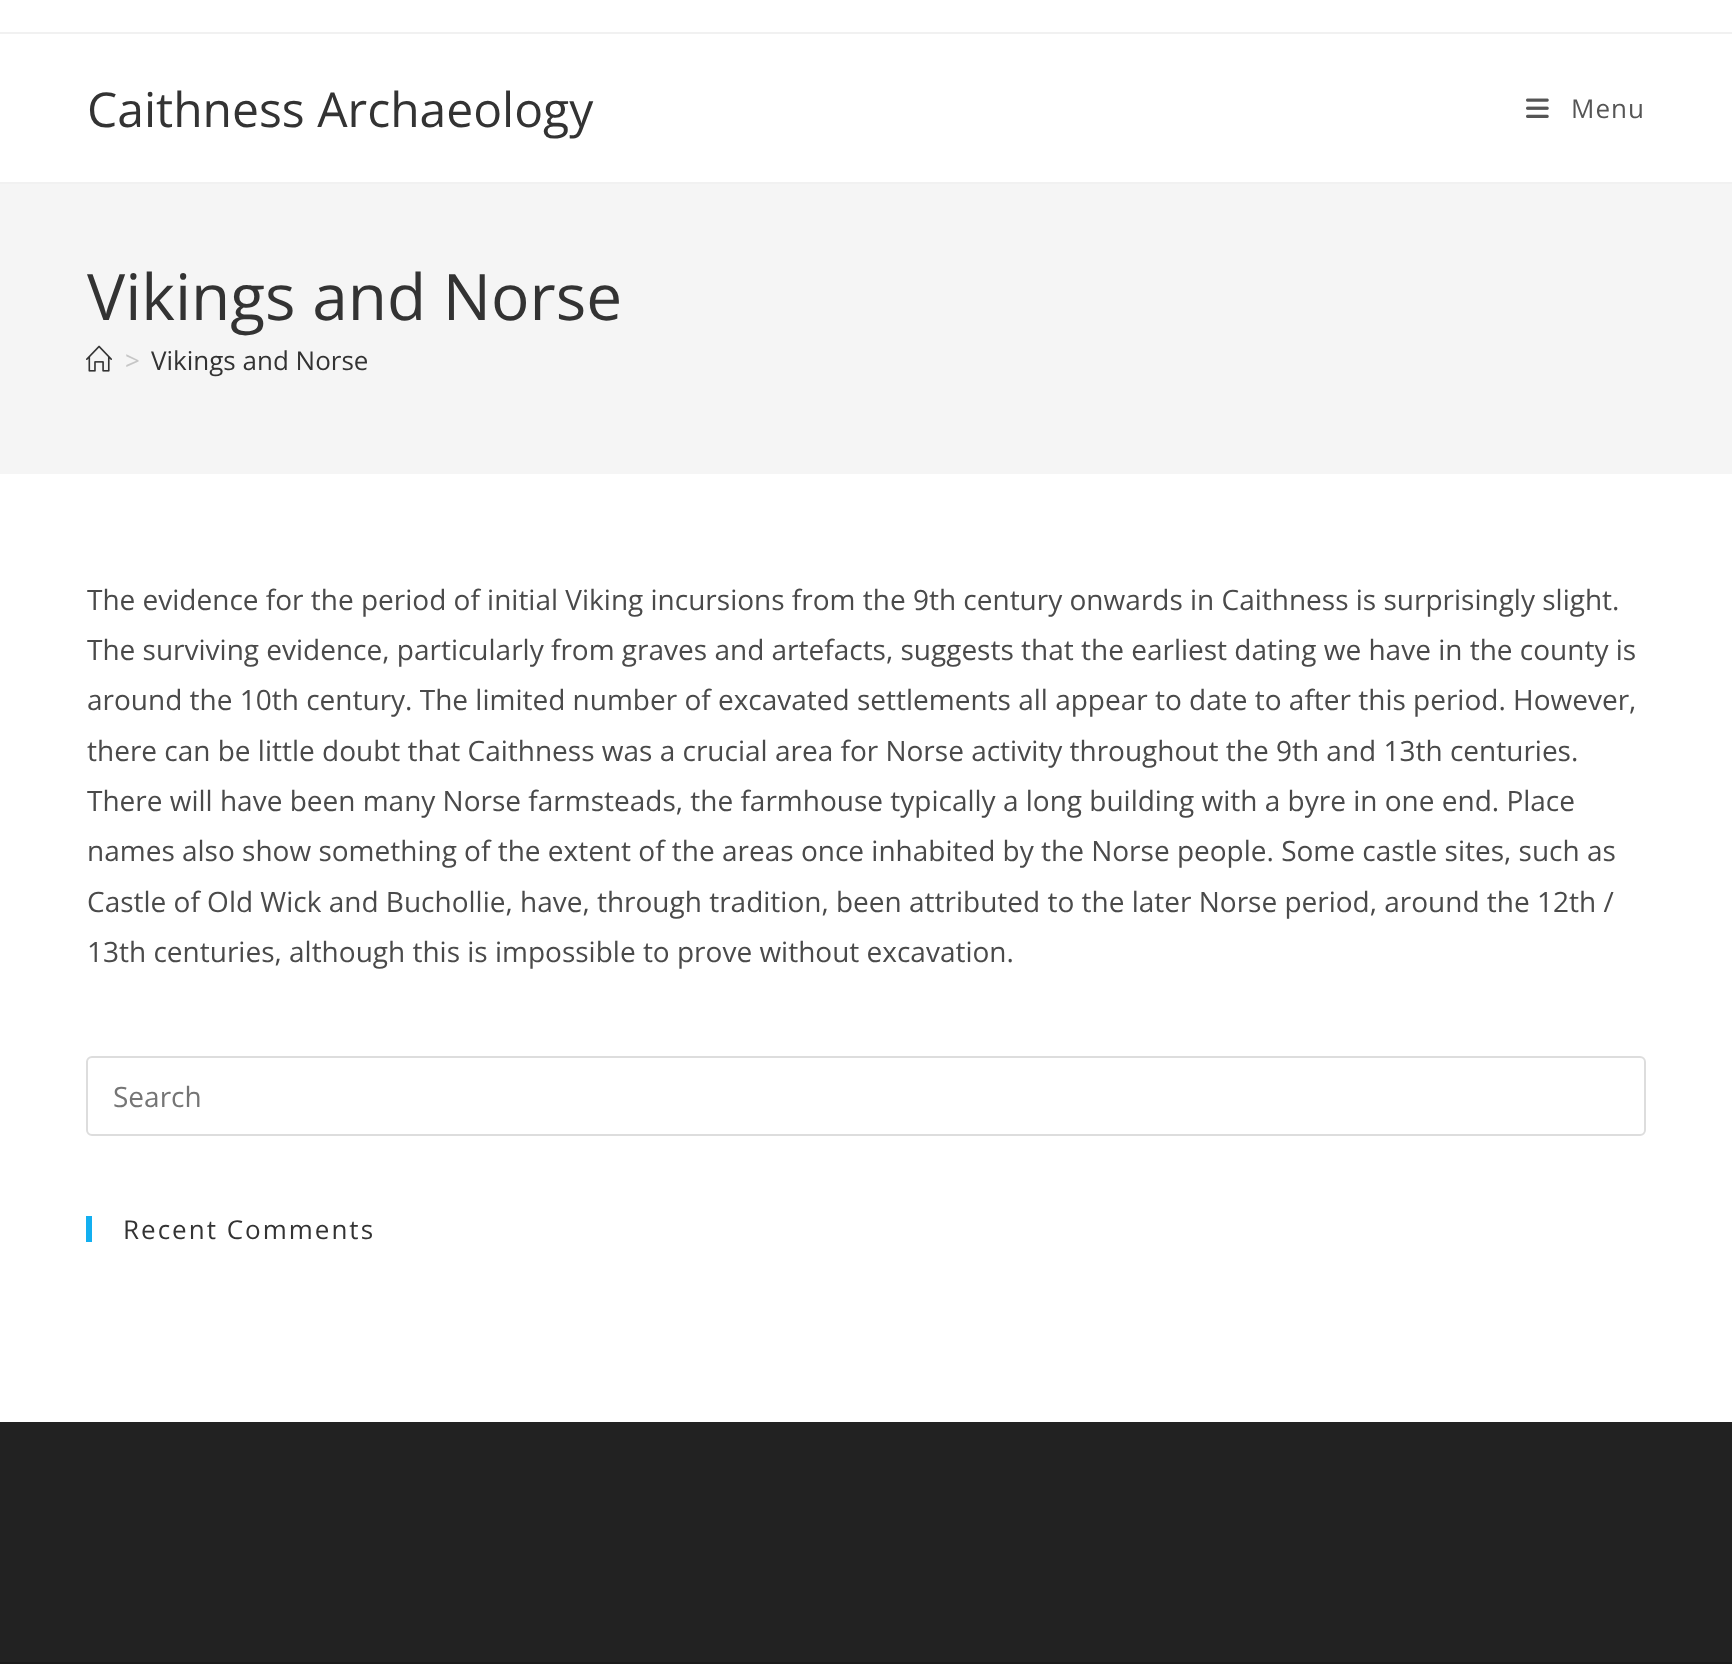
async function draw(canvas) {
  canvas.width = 1732
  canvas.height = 1664
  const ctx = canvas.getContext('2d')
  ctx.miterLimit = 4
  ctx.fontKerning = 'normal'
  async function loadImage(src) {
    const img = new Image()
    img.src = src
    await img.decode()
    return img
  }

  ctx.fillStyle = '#fff'
  ctx.fillRect(0, 0, 1732, 1664)
  ctx.fillStyle = '#f1f1f1'
  ctx.fillRect(0, 32, 1732, 2)
  ctx.fillRect(0, 182, 1732, 2)
  ctx.font = '48px Open Sans'
  ctx.fillStyle = '#333'
  ctx.fillText('Caithness Archaeology', 87, 127)
  ctx.drawImage(await loadImage('image0.png'), 1526, 98, 23, 20)
  ctx.letterSpacing = '1px'
  ctx.font = '26px Open Sans'
  ctx.fillStyle = '#555'
  ctx.fillText('Menu', 1571, 118)
  ctx.fillStyle = '#f5f5f5'
  ctx.fillRect(0, 184, 1732, 290)
  ctx.letterSpacing = '0px'
  ctx.font = '64px Open Sans'
  ctx.fillStyle = '#333'
  ctx.fillText('Vikings and Norse', 87, 320)
  ctx.drawImage(await loadImage('image1.png'), 86, 345, 26, 27)
  ctx.font = '26px Open Sans'
  ctx.fillStyle = '#c6c6c6'
  ctx.fillText('>', 125, 370)
  ctx.fillStyle = '#333'
  ctx.fillText('Vikings and Norse', 151, 370)
  ctx.font = '28px Open Sans'
  ctx.fillStyle = '#4a4a4a'
  ctx.fillText('The evidence for the period of initial Viking incursions from the 9th century onwards in Caithness is surprisingly slight.', 87, 610)
  ctx.fillText('The surviving evidence, particularly from graves and artefacts, suggests that the earliest dating we have in the county is', 87, 660)
  ctx.fillText('around the 10th century. The limited number of excavated settlements all appear to date to after this period. However,', 87, 710)
  ctx.fillText('there can be little doubt that Caithness was a crucial area for Norse activity throughout the 9th and 13th centuries.', 87, 761)
  ctx.fillText('There will have been many Norse farmsteads, the farmhouse typically a long building with a byre in one end. Place', 87, 811)
  ctx.fillText('names also show something of the extent of the areas once inhabited by the Norse people. Some castle sites, such as', 87, 861)
  ctx.fillText('Castle of Old Wick and Buchollie, have, through tradition, been attributed to the later Norse period, around the 12th /', 87, 912)
  ctx.fillText('13th centuries, although this is impossible to prove without excavation.', 87, 962)
  ctx.beginPath()
  ctx.roundRect(87, 1057, 1558, 78, 5)
  ctx.strokeStyle = '#ddd'
  ctx.lineWidth = 2
  ctx.stroke()
  ctx.fillStyle = '#757575'
  ctx.fillText('Search', 113, 1107)
  ctx.fillStyle = '#13aff0'
  ctx.fillRect(86, 1216, 6, 26)
  ctx.letterSpacing = '2px'
  ctx.font = '26px Open Sans'
  ctx.fillStyle = '#333'
  ctx.fillText('Recent Comments', 123, 1239)
  ctx.fillStyle = '#222'
  ctx.fillRect(0, 1422, 1732, 240)
  ctx.fillStyle = '#1b1b1b'
  ctx.fillRect(0, 1662, 1732, 2)
}

draw(document.querySelector('canvas'))
